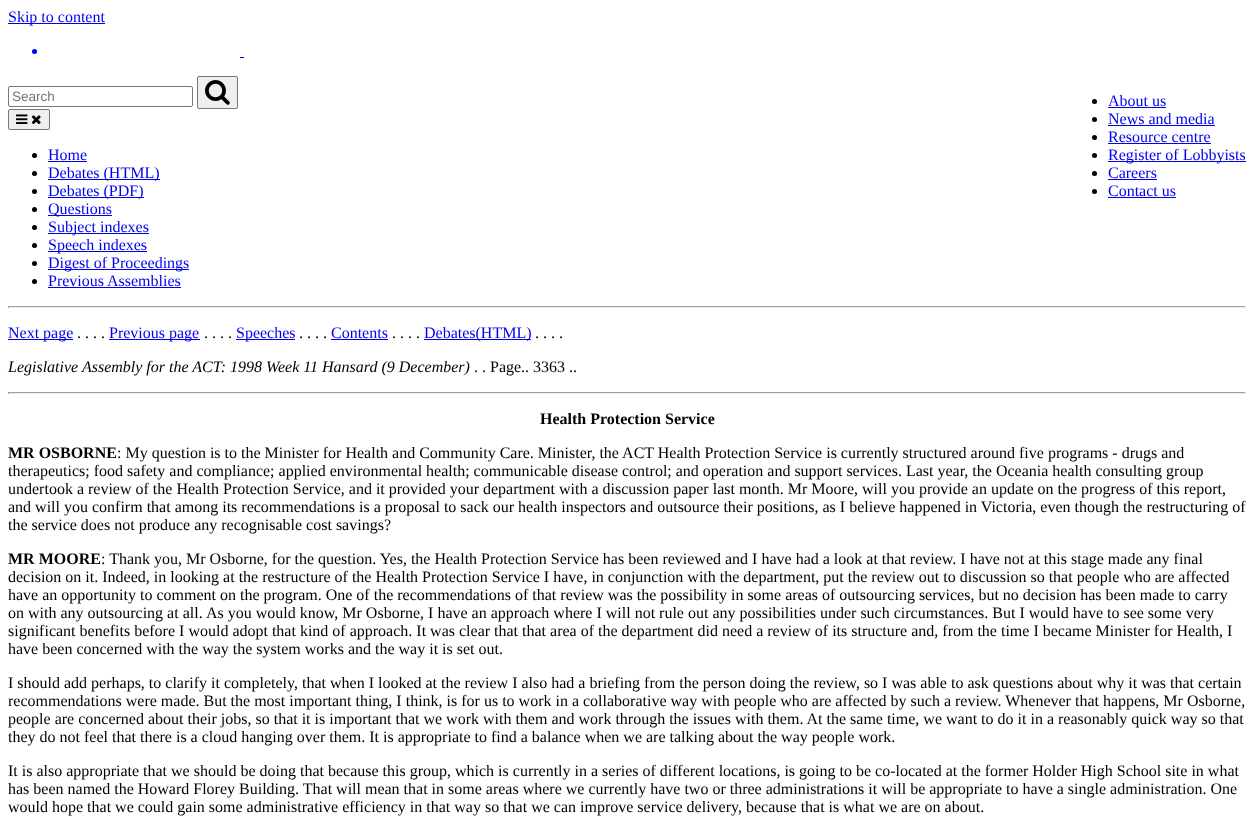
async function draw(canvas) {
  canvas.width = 1254
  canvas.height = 830
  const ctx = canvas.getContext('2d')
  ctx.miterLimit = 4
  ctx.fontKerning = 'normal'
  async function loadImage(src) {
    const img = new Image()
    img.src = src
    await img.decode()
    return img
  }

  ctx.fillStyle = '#fff'
  ctx.fillRect(0, 0, 1254, 830)
  ctx.fillStyle = '#00e'
  ctx.fillRect(8, 23, 97, 1)
  ctx.font = '16px Liberation Serif'
  ctx.fillText('Skip to content', 8, 22)
  ctx.beginPath()
  ctx.arc(34.5, 51.5, 2.5, 0, 2 * Math.PI)
  ctx.fill()
  ctx.fillRect(240, 57, 4, 1)
  ctx.beginPath()
  ctx.roundRect(8.5, 86.5, 184, 20, 1.5)
  ctx.strokeStyle = '#767676'
  ctx.stroke()
  ctx.font = '13.5px Liberation Sans'
  ctx.fillStyle = '#757575'
  ctx.fillText('Search', 12, 101)
  ctx.fillStyle = '#efefef'
  ctx.beginPath()
  ctx.roundRect(197.5, 76.5, 40, 32, 1.5)
  ctx.fill()
  ctx.stroke()
  ctx.drawImage(await loadImage('image0.png'), 205, 80, 25, 25)
  ctx.fillStyle = '#000'
  ctx.beginPath()
  ctx.arc(1094.5, 101.5, 2.5, 0, 2 * Math.PI)
  ctx.fill()
  ctx.font = '16px Liberation Serif'
  ctx.fillStyle = '#00e'
  ctx.fillText('About us', 1108, 106)
  ctx.fillRect(1108, 107, 58, 1)
  ctx.fillStyle = '#000'
  ctx.beginPath()
  ctx.arc(1094.5, 119.5, 2.5, 0, 2 * Math.PI)
  ctx.fill()
  ctx.fillStyle = '#00e'
  ctx.fillText('News and media', 1108, 124)
  ctx.fillRect(1108, 125, 107, 1)
  ctx.fillStyle = '#000'
  ctx.beginPath()
  ctx.arc(1094.5, 137.5, 2.5, 0, 2 * Math.PI)
  ctx.fill()
  ctx.fillStyle = '#00e'
  ctx.fillText('Resource centre', 1108, 142)
  ctx.fillRect(1108, 143, 103, 1)
  ctx.fillStyle = '#000'
  ctx.beginPath()
  ctx.arc(1094.5, 155.5, 2.5, 0, 2 * Math.PI)
  ctx.fill()
  ctx.fillStyle = '#00e'
  ctx.fillRect(1108, 161, 138, 1)
  ctx.fillText('Register of Lobbyists', 1108, 160)
  ctx.fillStyle = '#000'
  ctx.beginPath()
  ctx.arc(1094.5, 173.5, 2.5, 0, 2 * Math.PI)
  ctx.fill()
  ctx.fillStyle = '#00e'
  ctx.fillText('Careers', 1108, 178)
  ctx.fillRect(1108, 179, 49, 1)
  ctx.fillStyle = '#000'
  ctx.beginPath()
  ctx.arc(1094.5, 191.5, 2.5, 0, 2 * Math.PI)
  ctx.fill()
  ctx.fillStyle = '#00e'
  ctx.fillText('Contact us', 1108, 196)
  ctx.fillRect(1108, 197, 68, 1)
  ctx.fillStyle = '#efefef'
  ctx.beginPath()
  ctx.roundRect(8.5, 109.5, 41, 20, 1.5)
  ctx.fill()
  ctx.stroke()
  ctx.drawImage(await loadImage('image1.png'), 16, 114, 12, 10)
  ctx.drawImage(await loadImage('image2.png'), 31, 115, 10, 10)
  ctx.fillStyle = '#000'
  ctx.beginPath()
  ctx.arc(34.5, 155.5, 2.5, 0, 2 * Math.PI)
  ctx.fill()
  ctx.fillStyle = '#00e'
  ctx.fillText('Home', 48, 160)
  ctx.fillRect(48, 161, 39, 1)
  ctx.fillStyle = '#000'
  ctx.beginPath()
  ctx.arc(34.5, 173.5, 2.5, 0, 2 * Math.PI)
  ctx.fill()
  ctx.fillStyle = '#00e'
  ctx.fillRect(48, 179, 112, 1)
  ctx.fillText('Debates (HTML)', 48, 178)
  ctx.fillStyle = '#000'
  ctx.beginPath()
  ctx.arc(34.5, 191.5, 2.5, 0, 2 * Math.PI)
  ctx.fill()
  ctx.fillStyle = '#00e'
  ctx.fillRect(48, 197, 96, 1)
  ctx.fillText('Debates (PDF)', 48, 196)
  ctx.fillStyle = '#000'
  ctx.beginPath()
  ctx.arc(34.5, 209.5, 2.5, 0, 2 * Math.PI)
  ctx.fill()
  ctx.fillStyle = '#00e'
  ctx.fillRect(48, 215, 64, 1)
  ctx.fillText('Questions', 48, 214)
  ctx.fillStyle = '#000'
  ctx.beginPath()
  ctx.arc(34.5, 227.5, 2.5, 0, 2 * Math.PI)
  ctx.fill()
  ctx.fillStyle = '#00e'
  ctx.fillRect(48, 233, 101, 1)
  ctx.fillText('Subject indexes', 48, 232)
  ctx.fillStyle = '#000'
  ctx.beginPath()
  ctx.arc(34.5, 245.5, 2.5, 0, 2 * Math.PI)
  ctx.fill()
  ctx.fillStyle = '#00e'
  ctx.fillRect(48, 251, 99, 1)
  ctx.fillText('Speech indexes', 48, 250)
  ctx.fillStyle = '#000'
  ctx.beginPath()
  ctx.arc(34.5, 263.5, 2.5, 0, 2 * Math.PI)
  ctx.fill()
  ctx.fillStyle = '#00e'
  ctx.fillRect(48, 269, 141, 1)
  ctx.fillText('Digest of Proceedings', 48, 268)
  ctx.fillStyle = '#000'
  ctx.beginPath()
  ctx.arc(34.5, 281.5, 2.5, 0, 2 * Math.PI)
  ctx.fill()
  ctx.fillStyle = '#00e'
  ctx.fillText('Previous', 48, 286)
  ctx.fillRect(48, 287, 133, 1)
  ctx.fillText('Assemblies', 107, 286)
  ctx.fillStyle = '#9f9f9f'
  ctx.fillRect(8, 306, 1238, 1)
  ctx.fillStyle = '#eee'
  ctx.fillRect(1245, 306, 1, 2)
  ctx.fillRect(8, 307, 1238, 1)
  ctx.fillStyle = '#9f9f9f'
  ctx.fillRect(8, 306, 1, 2)
  ctx.fillStyle = '#00e'
  ctx.fillRect(8, 339, 65, 1)
  ctx.fillText('Next page', 8, 338)
  ctx.fillStyle = '#000'
  ctx.fillText('. . . .', 77, 338)
  ctx.fillStyle = '#00e'
  ctx.fillRect(109, 339, 91, 1)
  ctx.fillText('Previous page', 109, 338)
  ctx.fillStyle = '#000'
  ctx.fillText('. . . .', 204, 338)
  ctx.fillStyle = '#00e'
  ctx.fillRect(236, 339, 59, 1)
  ctx.fillText('Speeches', 236, 338)
  ctx.fillStyle = '#000'
  ctx.fillText('. . . .', 299, 338)
  ctx.fillStyle = '#00e'
  ctx.fillText('Contents', 331, 338)
  ctx.fillRect(331, 339, 57, 1)
  ctx.fillStyle = '#000'
  ctx.fillText('. . . .', 392, 338)
  ctx.fillStyle = '#00e'
  ctx.fillRect(424, 339, 107, 1)
  ctx.fillText('Debates(HTML)', 424, 338)
  ctx.fillStyle = '#000'
  ctx.fillText('. . . .', 535, 338)
  ctx.font = 'italic 16px Liberation Serif'
  ctx.fillText('Legislative Assembly for the ACT: 1998 Week 11 Hansard (9 December)', 8, 372)
  ctx.font = '16px Liberation Serif'
  ctx.fillText('. . Page.. 3363 ..', 474, 372)
  ctx.fillStyle = '#9f9f9f'
  ctx.fillRect(8, 392, 1238, 1)
  ctx.fillStyle = '#eee'
  ctx.fillRect(1245, 392, 1, 2)
  ctx.fillRect(8, 393, 1238, 1)
  ctx.fillStyle = '#9f9f9f'
  ctx.fillRect(8, 392, 1, 2)
  ctx.font = 'bold 16px Liberation Serif'
  ctx.fillStyle = '#000'
  ctx.fillText('Health Protection Service', 540, 424)
  ctx.fillText('MR OSBORNE', 8, 458)
  ctx.font = '16px Liberation Serif'
  ctx.fillText(': My question is to the Minister for Health and Community Care. Minister, the ACT Health Protection Service is currently structured around five programs - drugs and', 117, 458)
  ctx.fillText('therapeutics; food safety and compliance; applied environmental health; communicable disease control; and operation and support services. Last year, the Oceania health consulting group', 8, 476)
  ctx.fillText('undertook a review of the Health Protection Service, and it provided your department with a discussion paper last month. Mr Moore, will you provide an update on the progress of this report,', 8, 494)
  ctx.fillText('and will you confirm that among its recommendations is a proposal to sack our health inspectors and outsource their positions, as I believe happened in Victoria, even though the restructuring of', 8, 512)
  ctx.fillText('the service does not produce any recognisable cost savings?', 8, 530)
  ctx.font = 'bold 16px Liberation Serif'
  ctx.fillText('MR MOORE', 8, 564)
  ctx.font = '16px Liberation Serif'
  ctx.fillText(': Thank you, Mr Osborne, for the question. Yes, the Health Protection Service has been reviewed and I have had a look at that review. I have not at this stage made any final', 101, 564)
  ctx.fillText('decision on it. Indeed, in looking at the restructure of the Health Protection Service I have, in conjunction with the department, put the review out to discussion so that people who are affected', 8, 582)
  ctx.fillText('have an opportunity to comment on the program. One of the recommendations of that review was the possibility in some areas of outsourcing services, but no decision has been made to carry', 8, 600)
  ctx.fillText('on with any outsourcing at all.', 8, 618)
  ctx.fillText('As you would know, Mr Osborne, I have an approach where I will not rule out any possibilities under such circumstances. But I would have to see some very', 206, 618)
  ctx.fillText('significant benefits before I would adopt that kind of approach. It was clear that that area of the department did need a review of its structure and, from the time I became Minister for Health, I', 8, 636)
  ctx.fillText('have been concerned with the way the system works and the way it is set out.', 8, 654)
  ctx.fillText('I should add perhaps, to clarify it completely, that when I looked at the review I also had a briefing from the person doing the review, so I was able to ask questions about why it was that certain', 8, 688)
  ctx.fillText('recommendations were made. But the most important thing, I think, is for us to work in a collaborative way with people who are affected by such a review. Whenever that happens, Mr Osborne,', 8, 706)
  ctx.fillText('people are concerned about their jobs, so that it is important that we work with them and work through the issues with them. At the same time, we want to do it in a reasonably quick way so that', 8, 724)
  ctx.fillText('they do not feel that there is a cloud hanging over them. It is appropriate to find a balance when we are talking about the way people work.', 8, 742)
  ctx.fillText('It is also appropriate that we should be doing that because this group, which is currently in a series of different locations, is going to be co-located at the former Holder High School site in what', 8, 776)
  ctx.fillText('has been named the Howard Florey Building. That will mean that in some areas where we currently have two or three administrations it will be appropriate to have a single administration. One', 8, 794)
  ctx.fillText('would hope that we could gain some administrative efficiency in that way so that we can improve service delivery, because that is what we are on about.', 8, 812)
}

draw(document.querySelector('canvas'))
